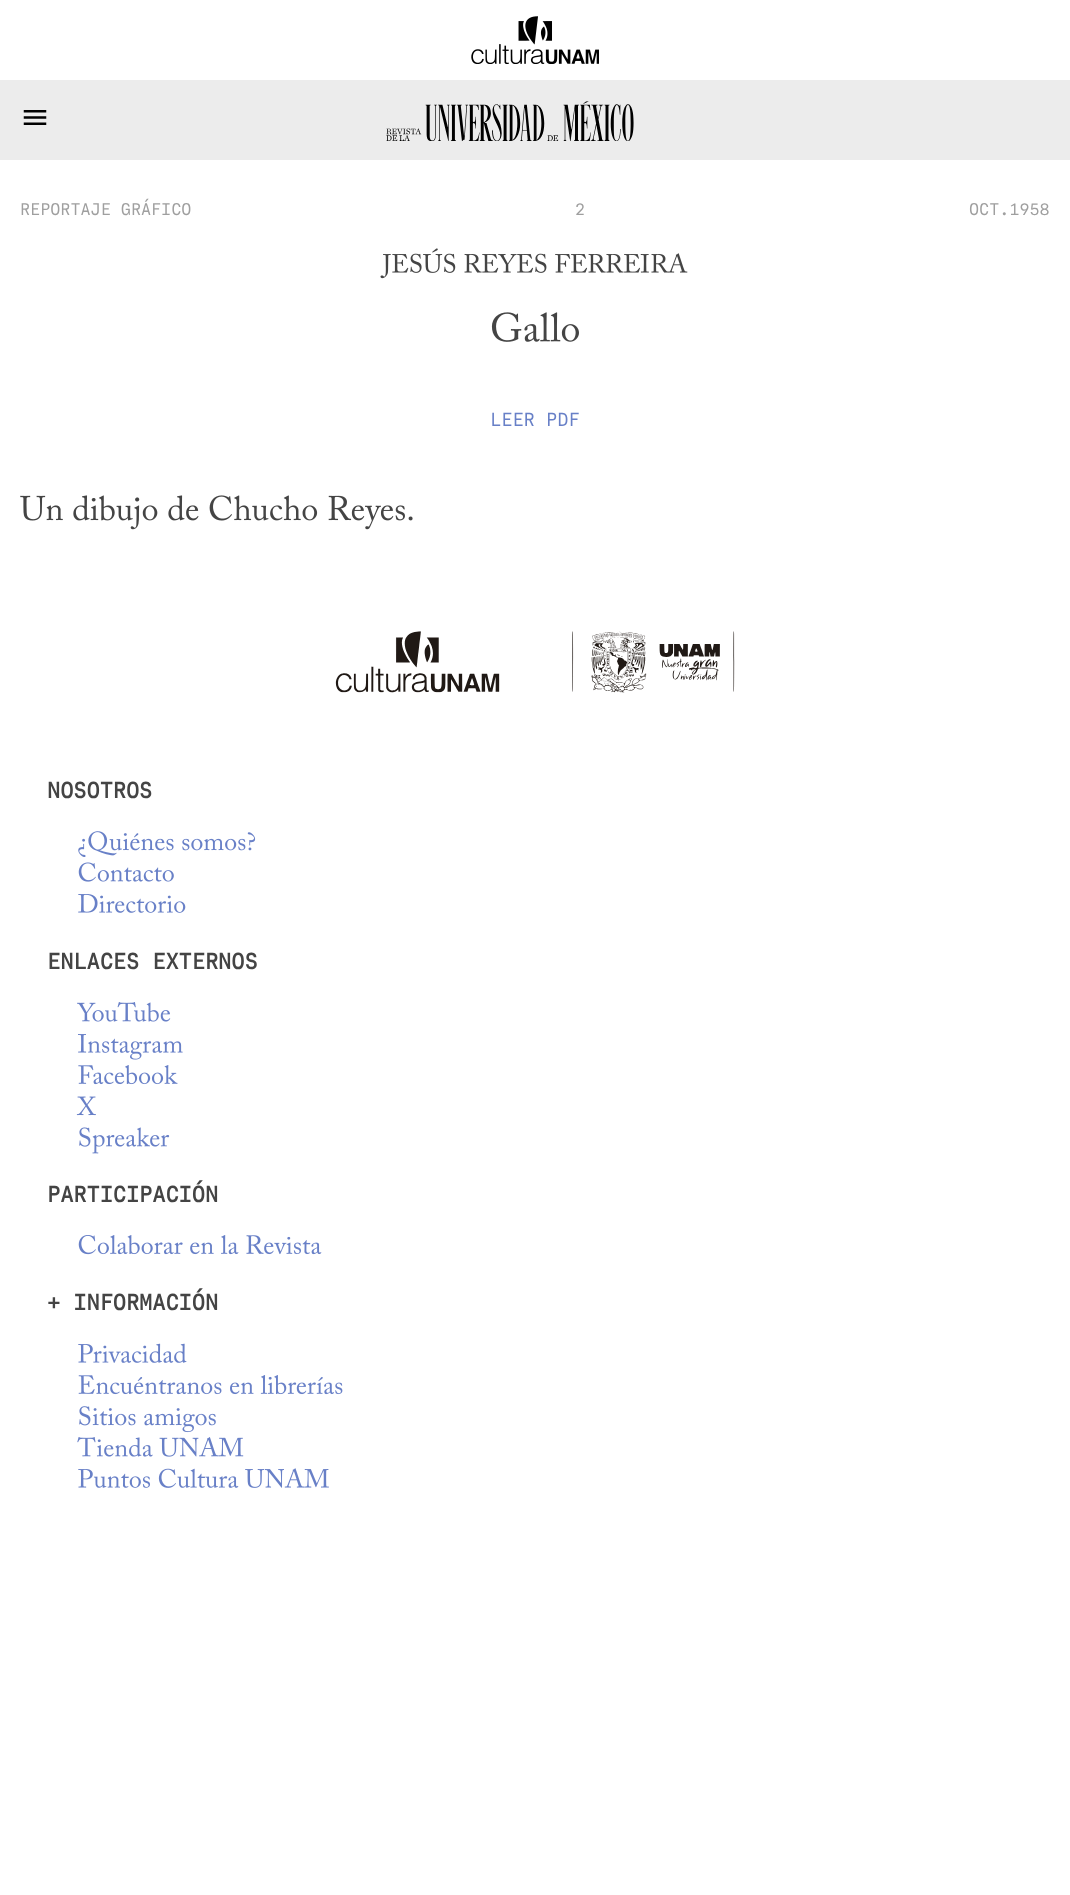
async function draw(canvas) {
  canvas.width = 1070
  canvas.height = 1895
  const ctx = canvas.getContext('2d')
  ctx.miterLimit = 4
  ctx.fontKerning = 'normal'
  async function loadImage(src) {
    const img = new Image()
    img.src = src
    await img.decode()
    return img
  }

  ctx.fillStyle = '#fff'
  ctx.fillRect(0, 0, 1070, 1895)
  ctx.drawImage(await loadImage('image0.png'), 471, 16, 128, 48)
  ctx.fillStyle = '#ececec'
  ctx.fillRect(0, 80, 1070, 80)
  ctx.drawImage(await loadImage('image1.png'), 23, 110, 24, 15)
  ctx.drawImage(await loadImage('image2.png'), 386, 101, 248, 40)
  ctx.font = '18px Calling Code'
  ctx.fillStyle = '#9f9f9f'
  ctx.fillText('REPORTAJE GRÁFICO', 20, 215)
  ctx.fillText('2', 575, 215)
  ctx.fillText('OCT.1958', 969, 215)
  ctx.drawImage(await loadImage('image3.png'), 380, 248, 308, 31)
  ctx.drawImage(await loadImage('image4.png'), 491, 312, 88, 30)
  ctx.font = '20px Calling Code'
  ctx.fillStyle = '#6880c7'
  ctx.fillText('LEER PDF', 490, 426)
  ctx.drawImage(await loadImage('image5.png'), 20, 495, 393, 35)
  ctx.drawImage(await loadImage('image6.png'), 335, 631, 400, 62)
  ctx.font = 'bold 23.5px Calling Code'
  ctx.fillStyle = '#444'
  ctx.fillText('NOSOTROS', 47, 798)
  ctx.drawImage(await loadImage('image7.png'), 78, 831, 178, 26)
  ctx.drawImage(await loadImage('image8.png'), 78, 862, 96, 20)
  ctx.drawImage(await loadImage('image9.png'), 78, 894, 108, 19)
  ctx.fillText('ENLACES EXTERNOS', 47, 969)
  ctx.drawImage(await loadImage('image10.png'), 77, 1002, 94, 20)
  ctx.drawImage(await loadImage('image11.png'), 78, 1034, 105, 26)
  ctx.drawImage(await loadImage('image12.png'), 78, 1065, 100, 20)
  ctx.drawImage(await loadImage('image13.png'), 76, 1096, 20, 20)
  ctx.drawImage(await loadImage('image14.png'), 79, 1127, 91, 27)
  ctx.fillText('PARTICIPACIÓN', 47, 1202)
  ctx.drawImage(await loadImage('image15.png'), 78, 1235, 244, 20)
  ctx.fillText('+ INFORMACIÓN', 47, 1310)
  ctx.drawImage(await loadImage('image16.png'), 78, 1343, 109, 20)
  ctx.drawImage(await loadImage('image17.png'), 78, 1375, 265, 20)
  ctx.drawImage(await loadImage('image18.png'), 79, 1406, 137, 27)
  ctx.drawImage(await loadImage('image19.png'), 77, 1437, 167, 20)
  ctx.drawImage(await loadImage('image20.png'), 78, 1468, 251, 20)
}

draw(document.querySelector('canvas'))
